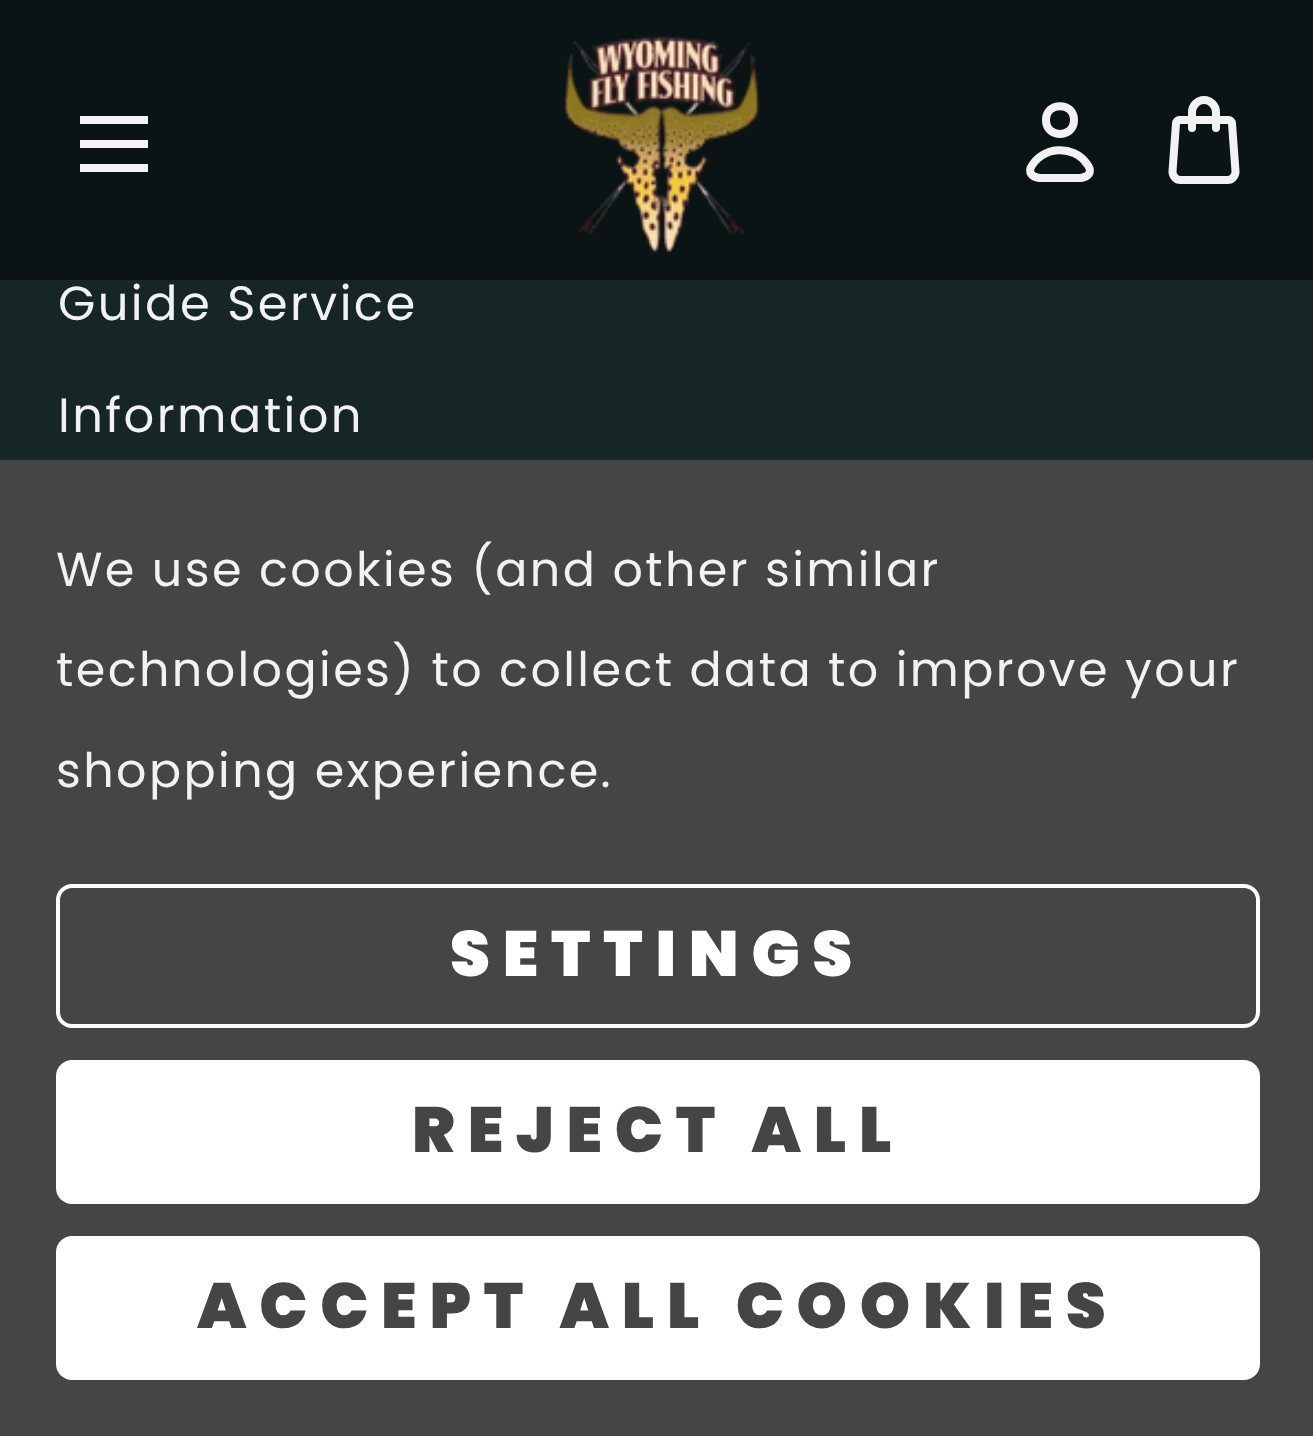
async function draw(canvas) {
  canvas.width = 1313
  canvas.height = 1436
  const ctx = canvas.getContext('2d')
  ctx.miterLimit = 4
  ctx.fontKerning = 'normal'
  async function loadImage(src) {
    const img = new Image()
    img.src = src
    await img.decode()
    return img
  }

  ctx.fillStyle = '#162526'
  ctx.fillRect(0, 0, 1313, 1436)
  ctx.fillStyle = '#0b1414'
  ctx.fillRect(0, 0, 1313, 280)
  ctx.fillStyle = '#f2f2f2'
  ctx.fillRect(80, 140, 68, 8)
  ctx.fillRect(80, 116, 68, 8)
  ctx.fillRect(80, 164, 68, 8)
  ctx.drawImage(await loadImage('image0.png'), 564, 36, 196, 216)
  ctx.beginPath()
  ctx.moveTo(1074, 120)
  ctx.bezierCurveTo(1074, 138.5, 1046, 138.5, 1046, 120)
  ctx.bezierCurveTo(1046, 101.5, 1074, 101.5, 1074, 120)
  ctx.closePath()
  ctx.strokeStyle = '#f2f2f2'
  ctx.lineWidth = 8
  ctx.lineCap = 'round'
  ctx.lineJoin = 'round'
  ctx.stroke()
  ctx.beginPath()
  ctx.moveTo(1030.5, 168)
  ctx.bezierCurveTo(1041.5, 146, 1073.5, 144, 1087, 164)
  ctx.bezierCurveTo(1089, 166.5, 1091, 169.5, 1089.5, 173)
  ctx.bezierCurveTo(1086.5, 179, 1078, 178, 1072.5, 178)
  ctx.lineTo(1047.5, 178)
  ctx.bezierCurveTo(1042, 178, 1033.5, 179, 1030.5, 173)
  ctx.bezierCurveTo(1030, 171, 1030, 169.5, 1030.5, 168)
  ctx.closePath()
  ctx.stroke()
  ctx.beginPath()
  ctx.moveTo(1228.5, 120)
  ctx.lineTo(1179.5, 120)
  ctx.bezierCurveTo(1177.5, 120, 1176, 121.5, 1176, 123.5)
  ctx.lineTo(1172.5, 171.5)
  ctx.bezierCurveTo(1172.5, 176, 1176, 180, 1180.5, 180)
  ctx.lineTo(1227.5, 180)
  ctx.bezierCurveTo(1232, 180, 1235.5, 176, 1235.5, 171.5)
  ctx.lineTo(1232, 123.5)
  ctx.bezierCurveTo(1232, 121.5, 1230.5, 120, 1228.5, 120)
  ctx.closePath()
  ctx.stroke()
  ctx.beginPath()
  ctx.moveTo(1216, 128)
  ctx.lineTo(1216, 112)
  ctx.bezierCurveTo(1216, 105.5, 1210.5, 100, 1204, 100)
  ctx.bezierCurveTo(1197.5, 100, 1192, 105.5, 1192, 112)
  ctx.lineTo(1192, 128)
  ctx.stroke()
  ctx.letterSpacing = '2.4px'
  ctx.font = '48px Poppins'
  ctx.fillText('Guide Service', 58, 320)
  ctx.fillText('Information', 58, 432)
  ctx.fillStyle = '#454545'
  ctx.fillRect(0, 460, 1313, 976)
  ctx.font = '47.6px Poppins'
  ctx.fillStyle = '#f2f2f2'
  ctx.fillText('We use cookies (and other similar', 56, 586)
  ctx.fillText('technologies) to collect data to improve your', 56, 686)
  ctx.fillText('shopping experience.', 56, 787)
  ctx.beginPath()
  ctx.roundRect(58, 886, 1200, 140, 14)
  ctx.strokeStyle = '#fff'
  ctx.lineWidth = 4
  ctx.lineJoin = 'miter'
  ctx.stroke()
  ctx.letterSpacing = '12.75px'
  ctx.font = '900 64px Poppins'
  ctx.fillStyle = '#fff'
  ctx.fillText('SETTINGS', 450, 976)
  ctx.beginPath()
  ctx.roundRect(56, 1060, 1204, 144, 16)
  ctx.fill()
  ctx.fillStyle = '#454545'
  ctx.fillText('REJECT ALL', 412, 1152)
  ctx.fillStyle = '#fff'
  ctx.beginPath()
  ctx.roundRect(56, 1236, 1204, 144, 16)
  ctx.fill()
  ctx.fillStyle = '#454545'
  ctx.fillText('ACCEPT ALL COOKIES', 197, 1328)
}

draw(document.querySelector('canvas'))
